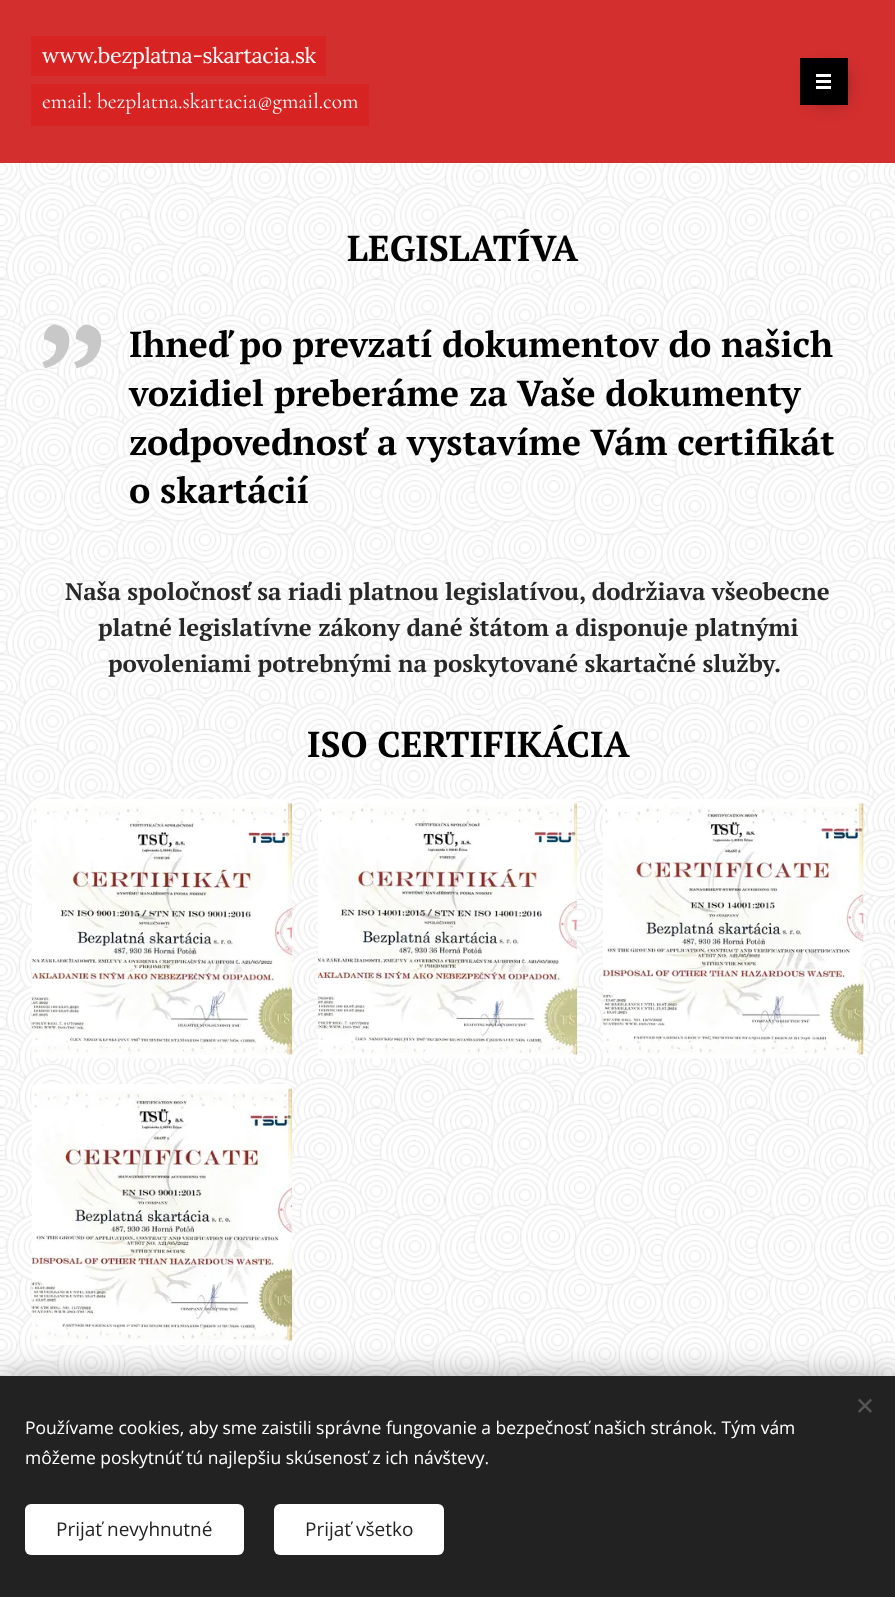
async function draw(canvas) {
  canvas.width = 895
  canvas.height = 1597
  const ctx = canvas.getContext('2d')
  ctx.miterLimit = 4
  ctx.fontKerning = 'normal'
  async function loadImage(src) {
    const img = new Image()
    img.src = src
    await img.decode()
    return img
  }

  ctx.fillStyle = '#fff'
  ctx.fillRect(0, 0, 895, 1597)
  ctx.fillStyle = '#d32f2f'
  ctx.fillRect(0, 0, 895, 163)
  ctx.fillStyle = '#d82323'
  ctx.fillRect(31, 36, 295, 40)
  ctx.letterSpacing = '-0.3px'
  ctx.font = '21.5px Lora'
  ctx.fillStyle = '#fff'
  ctx.fillText('www.bezplatna-skartacia.sk', 42, 63)
  ctx.fillStyle = '#d82323'
  ctx.fillRect(31, 84, 7, 42)
  ctx.fillRect(38, 84, 331, 42)
  ctx.letterSpacing = '0px'
  ctx.font = '21.5px Cormorant'
  ctx.fillStyle = '#fff'
  ctx.fillText('email: bezplatna.skartacia@gmail.com', 42, 108)
  ctx.fillStyle = '#00000080'
  ctx.filter = 'blur(10px)'
  ctx.beginPath()
  ctx.rect(815, 73, 28, 27)
  ctx.fill()
  ctx.filter = 'none'
  ctx.fillStyle = '#000'
  ctx.fillRect(800, 58, 48, 47)
  ctx.fillStyle = '#fff'
  ctx.fillRect(816, 80, 15, 3)
  ctx.fillRect(816, 74, 15, 3)
  ctx.fillRect(816, 86, 15, 3)
  ctx.drawImage(await loadImage('image0.png'), 0, 163, 895, 1213)
  ctx.font = 'bold 36px PT Serif'
  ctx.fillStyle = '#000'
  ctx.fillText('LEGISLATÍVA', 347, 261)
  ctx.font = '175px PT Serif'
  ctx.fillStyle = '#c8c8c8'
  ctx.save()
  ctx.translate(114, 224)
  ctx.rotate(180 * Math.PI / 180)
  ctx.fillText('“', 0, 0)
  ctx.restore()
  ctx.font = 'bold 36px PT Serif'
  ctx.fillStyle = '#000'
  ctx.fillText('Ihneď po prevzatí dokumentov do našich', 129, 357)
  ctx.fillText('vozidiel preberáme za Vaše dokumenty', 129, 406)
  ctx.fillText('zodpovednosť a vystavíme Vám certifikát', 129, 455)
  ctx.fillText('o skartácií', 129, 503)
  ctx.font = 'bold 24px PT Serif'
  ctx.fillStyle = '#282828'
  ctx.fillText('Naša spoločnosť sa riadi platnou legislatívou, dodržiava všeobecne', 65, 600)
  ctx.fillText('platné legislatívne zákony dané štátom a disponuje platnými', 98, 636)
  ctx.fillText('povoleniami potrebnými na poskytované skartačné služby.', 108, 672)
  ctx.font = 'bold 36px PT Serif'
  ctx.fillStyle = '#000'
  ctx.fillText('ISO CERTIFIKÁCIA', 307, 757)
  ctx.drawImage(await loadImage('image1.png'), 31, 799, 262, 260)
  ctx.drawImage(await loadImage('image2.png'), 317, 799, 261, 260)
  ctx.drawImage(await loadImage('image3.png'), 602, 799, 262, 260)
  ctx.drawImage(await loadImage('image4.png'), 31, 1084, 262, 261)
  ctx.fillStyle = '#00000054'
  ctx.filter = 'blur(15.5px)'
  ctx.beginPath()
  ctx.rect(0, 1376, 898, 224)
  ctx.fill()
  ctx.filter = 'none'
  ctx.fillStyle = '#222'
  ctx.fillRect(0, 1376, 895, 221)
  ctx.fillStyle = '#555'
  ctx.beginPath()
  ctx.moveTo(858, 1411)
  ctx.lineTo(870.5, 1398.5)
  ctx.lineTo(872, 1400.5)
  ctx.lineTo(859.5, 1413)
  ctx.closePath()
  ctx.fill()
  ctx.beginPath()
  ctx.moveTo(859.5, 1398.5)
  ctx.lineTo(872, 1411)
  ctx.lineTo(870.5, 1413)
  ctx.lineTo(858, 1400.5)
  ctx.closePath()
  ctx.fill()
  ctx.font = '17.5px Open Sans'
  ctx.fillStyle = '#fff'
  ctx.fillText('Používame cookies, aby sme zaistili správne fungovanie a bezpečnosť našich stránok. Tým vám', 25, 1434)
  ctx.fillText('môžeme poskytnúť tú najlepšiu skúsenosť z ich návštevy.', 25, 1464)
  ctx.beginPath()
  ctx.roundRect(25, 1504, 219, 51, 6)
  ctx.fill()
  ctx.font = '19px Open Sans'
  ctx.fillStyle = '#222'
  ctx.fillText('Prijať nevyhnutné', 56, 1536)
  ctx.fillStyle = '#fff'
  ctx.beginPath()
  ctx.roundRect(274, 1504, 170, 51, 6)
  ctx.fill()
  ctx.fillStyle = '#222'
  ctx.fillText('Prijať všetko', 305, 1536)
}

draw(document.querySelector('canvas'))
